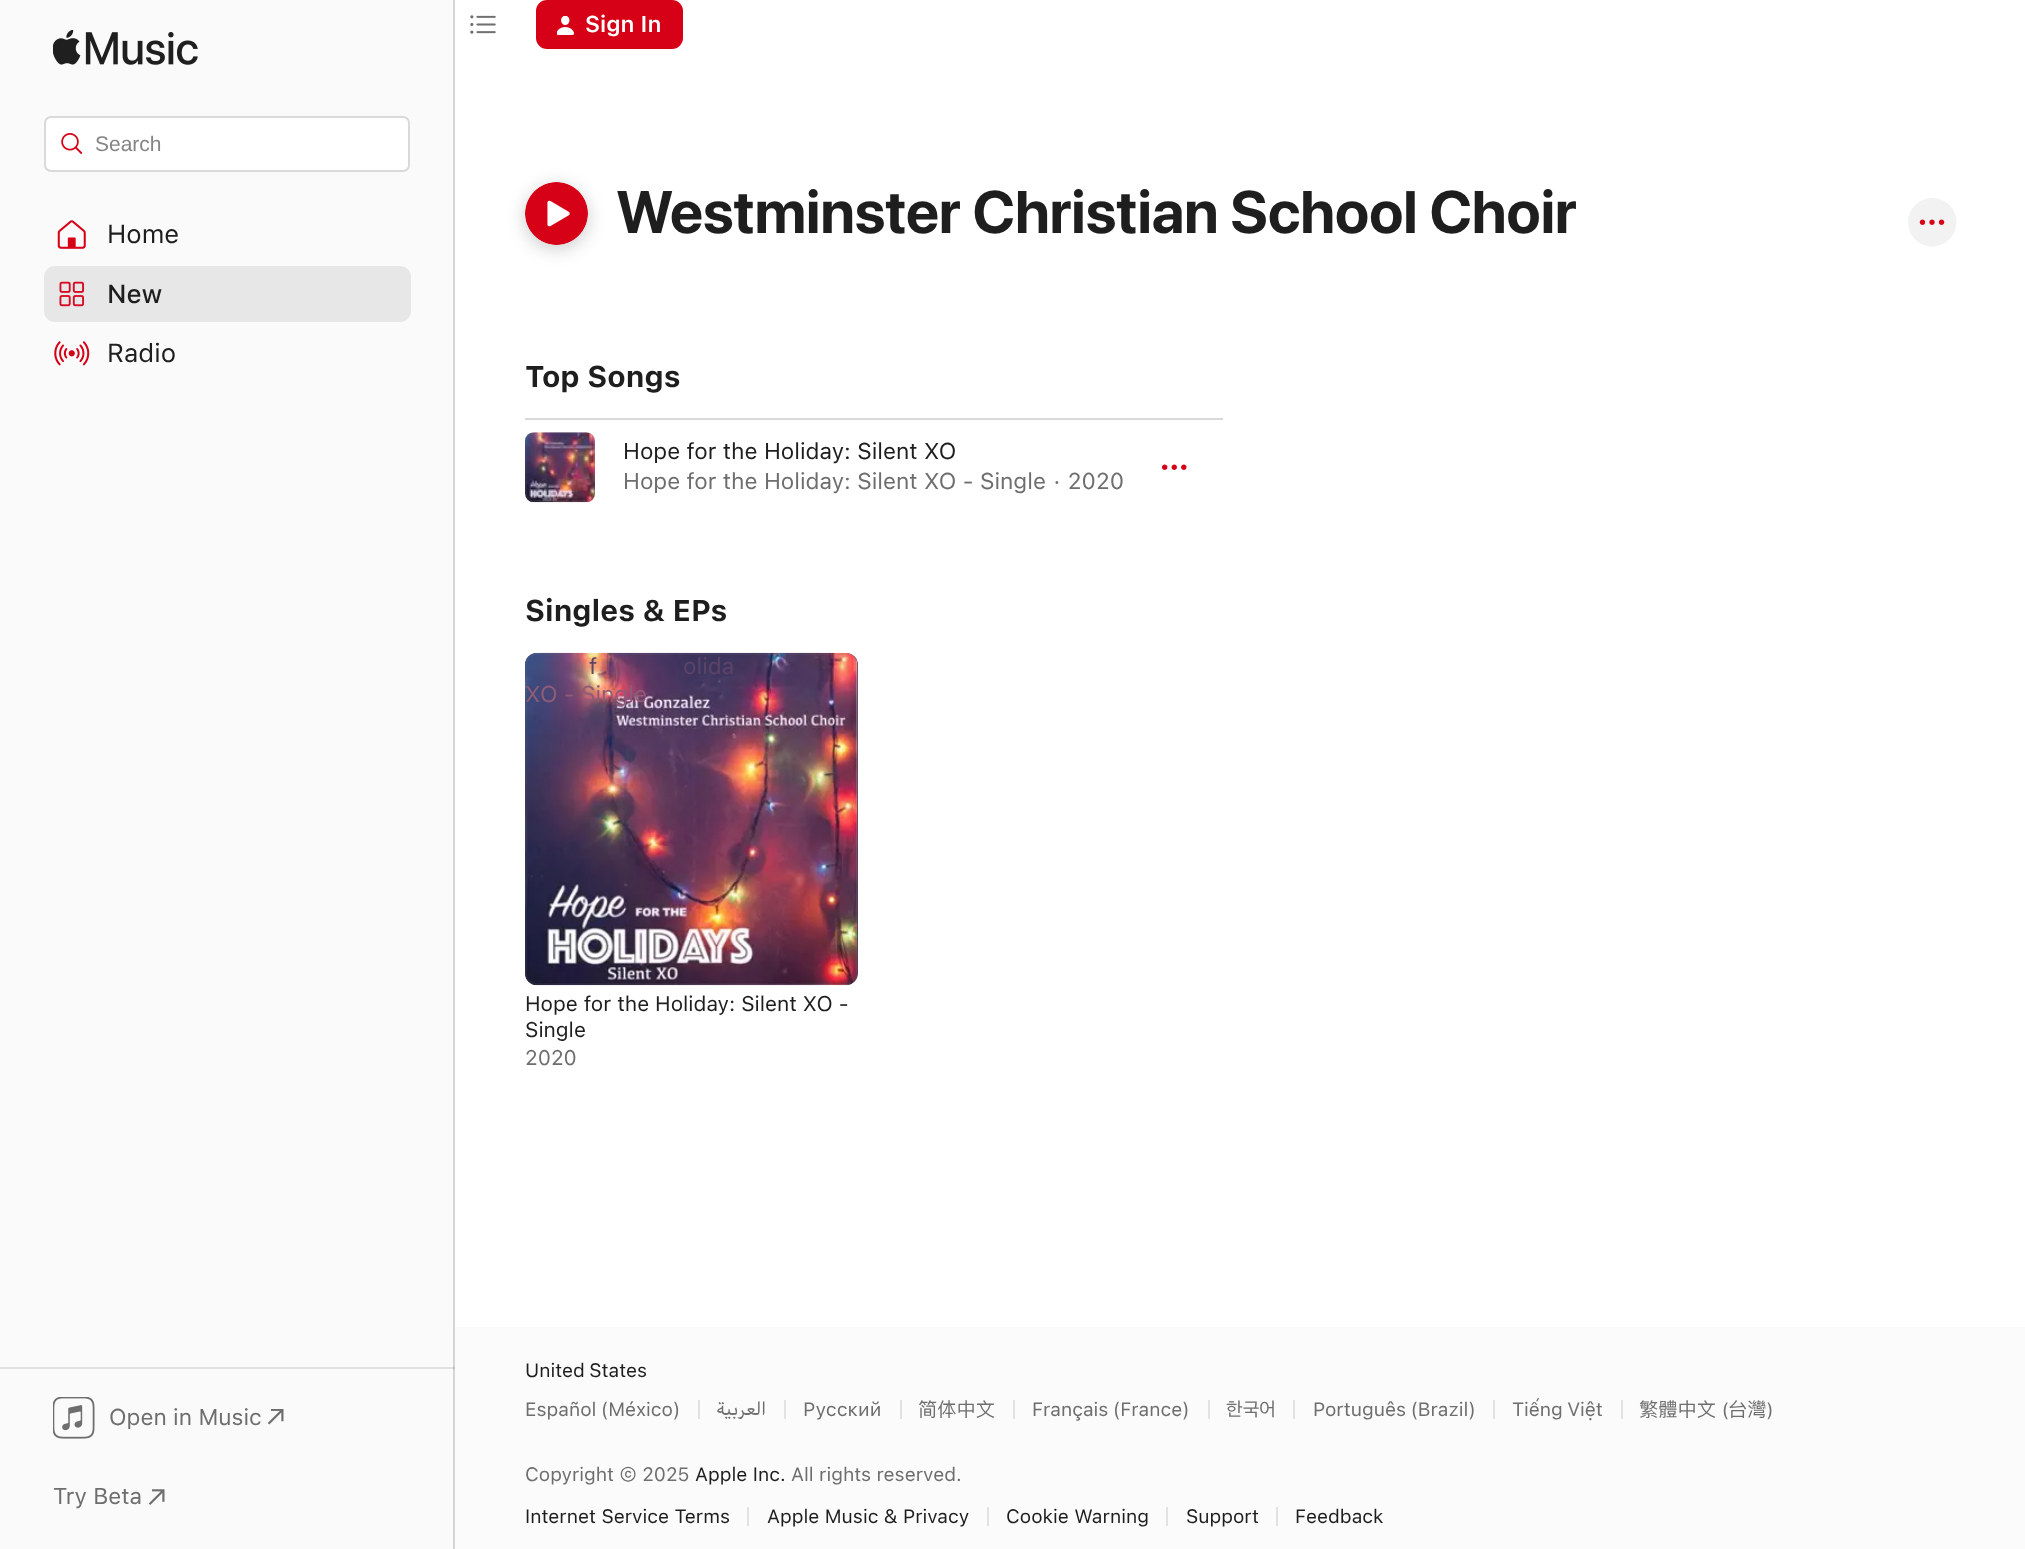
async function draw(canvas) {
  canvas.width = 2025
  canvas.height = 1549
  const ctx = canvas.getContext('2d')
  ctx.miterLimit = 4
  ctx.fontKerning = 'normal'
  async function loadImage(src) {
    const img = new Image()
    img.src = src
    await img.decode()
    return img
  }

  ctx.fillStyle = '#fff'
  ctx.fillRect(0, 0, 2025, 1549)
  ctx.drawImage(await loadImage('image0.png'), 470, 15, 26, 19)
  ctx.fillStyle = '#d60017'
  ctx.beginPath()
  ctx.roundRect(536, 0, 147, 49, 11)
  ctx.fill()
  ctx.drawImage(await loadImage('image1.png'), 557, 16, 17, 19)
  ctx.font = '600 22.75px SF'
  ctx.fillStyle = '#fff'
  ctx.fillText('Sign In', 585, 32)
  ctx.fillStyle = '#fafafa'
  ctx.fillRect(0, 0, 453, 1549)
  ctx.fillStyle = '#e1e1e1'
  ctx.fillRect(0, 1367, 455, 2)
  ctx.fillStyle = '#d5d5d5'
  ctx.fillRect(453, 0, 2, 1549)
  ctx.fillStyle = '#c0c0c0'
  ctx.fillRect(453, 1367, 2, 2)
  ctx.drawImage(await loadImage('image2.png'), 53, 30, 145, 35)
  ctx.fillStyle = '#fff'
  ctx.beginPath()
  ctx.roundRect(45, 117, 364, 54, 6)
  ctx.fill()
  ctx.strokeStyle = '#d9d9d9'
  ctx.lineWidth = 2
  ctx.stroke()
  ctx.drawImage(await loadImage('image3.png'), 61, 133, 21, 21)
  ctx.font = '21px Liberation Sans'
  ctx.fillStyle = '#858585'
  ctx.fillText('Search', 95, 151)
  ctx.drawImage(await loadImage('image4.png'), 57, 220, 29, 29)
  ctx.font = '26px SF'
  ctx.fillStyle = '#1e1e1e'
  ctx.fillText('Home', 107, 243)
  ctx.fillStyle = '#e7e7e8'
  ctx.beginPath()
  ctx.roundRect(44, 266, 367, 56, 11)
  ctx.fill()
  ctx.drawImage(await loadImage('image5.png'), 59, 281, 25, 26)
  ctx.font = '500 26px SF'
  ctx.fillStyle = '#1e1e1e'
  ctx.fillText('New', 107, 303)
  ctx.drawImage(await loadImage('image6.png'), 54, 341, 36, 25)
  ctx.font = '26px SF'
  ctx.fillText('Radio', 107, 362)
  ctx.drawImage(await loadImage('image7.png'), 53, 1397, 42, 42)
  ctx.font = '22.75px SF'
  ctx.fillStyle = '#6e6e6e'
  ctx.fillText('Open in Music', 109, 1425)
  ctx.drawImage(await loadImage('image8.png'), 268, 1409, 16, 16)
  ctx.fillText('Try Beta', 53, 1504)
  ctx.drawImage(await loadImage('image9.png'), 149, 1489, 16, 16)
  ctx.fillStyle = '#00000033'
  ctx.filter = 'blur(9px)'
  ctx.beginPath()
  ctx.roundRect(525, 186, 63, 63, 31.5)
  ctx.fill()
  ctx.filter = 'none'
  ctx.drawImage(await loadImage('image10.png'), 525, 182, 63, 63)
  ctx.font = 'bold 59.5px "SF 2"'
  ctx.fillStyle = '#1e1e1e'
  ctx.fillText('Westminster Christian School Choir', 616, 233)
  ctx.drawImage(await loadImage('image11.png'), 1908, 198, 49, 49)
  ctx.font = 'bold 29.75px SF'
  ctx.fillText('Top Songs', 525, 387)
  ctx.fillStyle = '#d9d9d9'
  ctx.fillRect(525, 418, 698, 2)
  ctx.drawImage(await loadImage('image12.png'), 525, 432, 70, 71)
  ctx.beginPath()
  ctx.roundRect(526, 433, 68, 68, 8)
  ctx.strokeStyle = '#8080801a'
  ctx.stroke()
  ctx.font = '22.75px SF'
  ctx.fillStyle = '#1e1e1e'
  ctx.fillText('Hope for the Holiday: Silent XO', 623, 459)
  ctx.fillStyle = '#6e6e6e'
  ctx.fillText('Hope for the Holiday: Silent XO - Single · 2020', 623, 489)
  ctx.drawImage(await loadImage('image13.png'), 1162, 464, 25, 6)
  ctx.font = 'bold 29.75px SF'
  ctx.fillStyle = '#1e1e1e'
  ctx.fillText('Singles & EPs', 525, 621)
  ctx.fillStyle = '#483561'
  ctx.beginPath()
  ctx.roundRect(525, 653, 333, 332, 12)
  ctx.fill()
  ctx.drawImage(await loadImage('image14.png'), 525, 652, 333, 334)
  ctx.beginPath()
  ctx.roundRect(526, 654, 331, 330, 11)
  ctx.stroke()
  ctx.font = '22.75px SF'
  ctx.fillStyle = '#5c4468'
  ctx.fillText('f', 589, 674)
  ctx.fillText('olida', 683, 674)
  ctx.fillStyle = '#8f5c77'
  ctx.fillText('XO - Single', 525, 702)
  ctx.font = '21px SF'
  ctx.fillStyle = '#1e1e1e'
  ctx.fillText('Hope for the Holiday: Silent XO -', 525, 1011)
  ctx.fillText('Single', 525, 1037)
  ctx.fillStyle = '#6e6e6e'
  ctx.fillText('2020', 525, 1065)
  ctx.fillStyle = '#fbfbfb'
  ctx.fillRect(455, 1327, 1570, 222)
  ctx.wordSpacing = '-1px'
  ctx.font = '19.25px SF'
  ctx.fillStyle = '#1e1e1e'
  ctx.fillText('United States', 525, 1377)
  ctx.fillStyle = '#6e6e6e'
  ctx.fillText('Español (México)', 525, 1416)
  ctx.fillStyle = '#e2e2e2'
  ctx.fillRect(698, 1400, 2, 19)
  ctx.wordSpacing = '0px'
  ctx.direction = 'rtl'
  ctx.font = '19.25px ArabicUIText'
  ctx.fillStyle = '#6e6e6e'
  ctx.fillText('العربية', 766, 1416)
  ctx.fillStyle = '#e2e2e2'
  ctx.fillRect(784, 1400, 2, 19)
  ctx.direction = 'ltr'
  ctx.font = '19.25px SF'
  ctx.fillStyle = '#6e6e6e'
  ctx.fillText('Русский', 803, 1416)
  ctx.fillStyle = '#e2e2e2'
  ctx.fillRect(900, 1400, 2, 19)
  ctx.font = '19.25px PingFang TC'
  ctx.fillStyle = '#6e6e6e'
  ctx.fillText('简体中文', 918, 1416)
  ctx.fillStyle = '#e2e2e2'
  ctx.fillRect(1013, 1400, 2, 19)
  ctx.wordSpacing = '-1px'
  ctx.font = '19.25px SF'
  ctx.fillStyle = '#6e6e6e'
  ctx.fillText('Français (France)', 1032, 1416)
  ctx.fillStyle = '#e2e2e2'
  ctx.fillRect(1208, 1400, 2, 19)
  ctx.wordSpacing = '0px'
  ctx.font = '19.25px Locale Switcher'
  ctx.fillStyle = '#6e6e6e'
  ctx.fillText('한국어', 1226, 1416)
  ctx.fillStyle = '#e2e2e2'
  ctx.fillRect(1293, 1400, 2, 19)
  ctx.wordSpacing = '-1px'
  ctx.font = '19.25px SF'
  ctx.fillStyle = '#6e6e6e'
  ctx.fillText('Português (Brazil)', 1313, 1416)
  ctx.fillStyle = '#e2e2e2'
  ctx.fillRect(1493, 1400, 2, 19)
  ctx.fillStyle = '#6e6e6e'
  ctx.fillText('Tiếng Việt', 1512, 1416)
  ctx.fillStyle = '#e2e2e2'
  ctx.fillRect(1621, 1400, 2, 19)
  ctx.wordSpacing = '0px'
  ctx.font = '19.25px PingFang TC'
  ctx.fillStyle = '#6e6e6e'
  ctx.fillText('繁體中文', 1639, 1416)
  ctx.font = '19.25px "SF 2"'
  ctx.fillText('(', 1722, 1416)
  ctx.font = '19.25px PingFang TC'
  ctx.fillText('台灣', 1728, 1416)
  ctx.font = '19.25px "SF 2"'
  ctx.fillText(')', 1767, 1416)
  ctx.font = '19.25px SF'
  ctx.fillText('Copyright © 2025', 525, 1481)
  ctx.fillStyle = '#1e1e1e'
  ctx.fillText('Apple Inc.', 695, 1481)
  ctx.fillStyle = '#6e6e6e'
  ctx.fillText('All rights reserved.', 791, 1481)
  ctx.fillStyle = '#1e1e1e'
  ctx.fillText('Internet Service Terms', 525, 1523)
  ctx.fillStyle = '#e2e2e2'
  ctx.fillRect(747, 1507, 2, 19)
  ctx.fillStyle = '#1e1e1e'
  ctx.fillText('Apple Music & Privacy', 767, 1523)
  ctx.fillStyle = '#e2e2e2'
  ctx.fillRect(987, 1507, 2, 19)
  ctx.fillStyle = '#1e1e1e'
  ctx.fillText('Cookie Warning', 1006, 1523)
  ctx.fillStyle = '#e2e2e2'
  ctx.fillRect(1166, 1507, 2, 19)
  ctx.fillStyle = '#1e1e1e'
  ctx.fillText('Support', 1186, 1523)
  ctx.fillStyle = '#e2e2e2'
  ctx.fillRect(1276, 1507, 2, 19)
  ctx.fillStyle = '#1e1e1e'
  ctx.fillText('Feedback', 1295, 1523)
}

draw(document.querySelector('canvas'))
